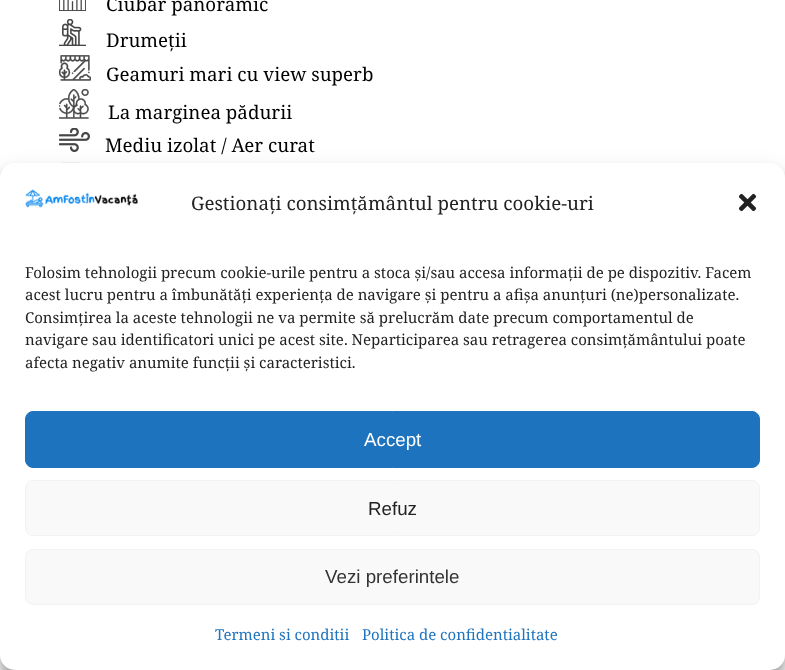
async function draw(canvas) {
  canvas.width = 785
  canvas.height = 670
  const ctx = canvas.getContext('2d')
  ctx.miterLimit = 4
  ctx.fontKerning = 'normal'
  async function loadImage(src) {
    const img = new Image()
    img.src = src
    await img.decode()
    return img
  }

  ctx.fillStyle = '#fff'
  ctx.fillRect(0, 0, 785, 670)
  ctx.drawImage(await loadImage('image0.png'), 59, 0, 27, 11)
  ctx.font = '18.75px Noto Serif'
  ctx.fillStyle = '#000'
  ctx.fillText('Ciubăr panoramic', 106, 11)
  ctx.drawImage(await loadImage('image1.png'), 59, 19, 27, 27)
  ctx.fillText('Drumeții', 106, 47)
  ctx.drawImage(await loadImage('image2.png'), 59, 55, 32, 26)
  ctx.fillText('Geamuri mari cu view superb', 106, 81)
  ctx.drawImage(await loadImage('image3.png'), 59, 89, 30, 30)
  ctx.fillText('La marginea pădurii', 108, 119)
  ctx.drawImage(await loadImage('image4.png'), 59, 128, 31, 24)
  ctx.fillText('Mediu izolat / Aer curat', 105, 152)
  ctx.drawImage(await loadImage('image5.png'), 62, 162, 18, 1)
  ctx.fillStyle = '#0000003b'
  ctx.filter = 'blur(4px)'
  ctx.beginPath()
  ctx.roundRect(0, 170, 785, 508, 15)
  ctx.fill()
  ctx.filter = 'none'
  ctx.fillStyle = '#00000030'
  ctx.filter = 'blur(12.5px)'
  ctx.beginPath()
  ctx.roundRect(0, 175, 785, 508, 15)
  ctx.fill()
  ctx.filter = 'none'
  ctx.fillStyle = '#fff'
  ctx.beginPath()
  ctx.roundRect(0, 163, 785, 507, 15)
  ctx.fill()
  ctx.drawImage(await loadImage('image6.png'), 25, 189, 113, 19)
  ctx.fillStyle = '#222'
  ctx.fillText('Gestionați consimțământul pentru cookie-uri', 191, 210)
  ctx.drawImage(await loadImage('image7.png'), 738, 193, 19, 19)
  ctx.font = '15px Noto Serif'
  ctx.fillText('Folosim tehnologii precum cookie-urile pentru a stoca și/sau accesa informații de pe dispozitiv. Facem', 25, 278)
  ctx.fillText('acest lucru pentru a îmbunătăți experiența de navigare și pentru a afișa anunțuri (ne)personalizate.', 25, 300)
  ctx.fillText('Consimțirea la aceste tehnologii ne va permite să prelucrăm date precum comportamentul de', 25, 323)
  ctx.fillText('navigare sau identificatori unici pe acest site. Neparticiparea sau retragerea consimțământului poate', 25, 345)
  ctx.fillText('afecta negativ anumite funcții și caracteristici.', 25, 368)
  ctx.fillStyle = '#1e73be'
  ctx.beginPath()
  ctx.roundRect(25.5, 411.5, 734, 56, 7.5)
  ctx.fill()
  ctx.strokeStyle = '#1e73be'
  ctx.stroke()
  ctx.font = '18.75px Liberation Sans'
  ctx.fillStyle = '#fff'
  ctx.fillText('Accept', 364, 446)
  ctx.fillStyle = '#f9f9f9'
  ctx.beginPath()
  ctx.roundRect(25.5, 480.5, 734, 55, 7.5)
  ctx.fill()
  ctx.strokeStyle = '#f2f2f2'
  ctx.stroke()
  ctx.fillStyle = '#222'
  ctx.fillText('Refuz', 368, 515)
  ctx.fillStyle = '#f9f9f9'
  ctx.beginPath()
  ctx.roundRect(25.5, 549.5, 734, 55, 7.5)
  ctx.fill()
  ctx.stroke()
  ctx.fillStyle = '#333'
  ctx.fillText('Vezi preferintele', 325, 583)
  ctx.font = '15px Noto Serif'
  ctx.fillStyle = '#1e73be'
  ctx.fillText('Termeni si conditii', 215, 640)
  ctx.fillText('Politica de confidentialitate', 362, 640)
}

draw(document.querySelector('canvas'))
